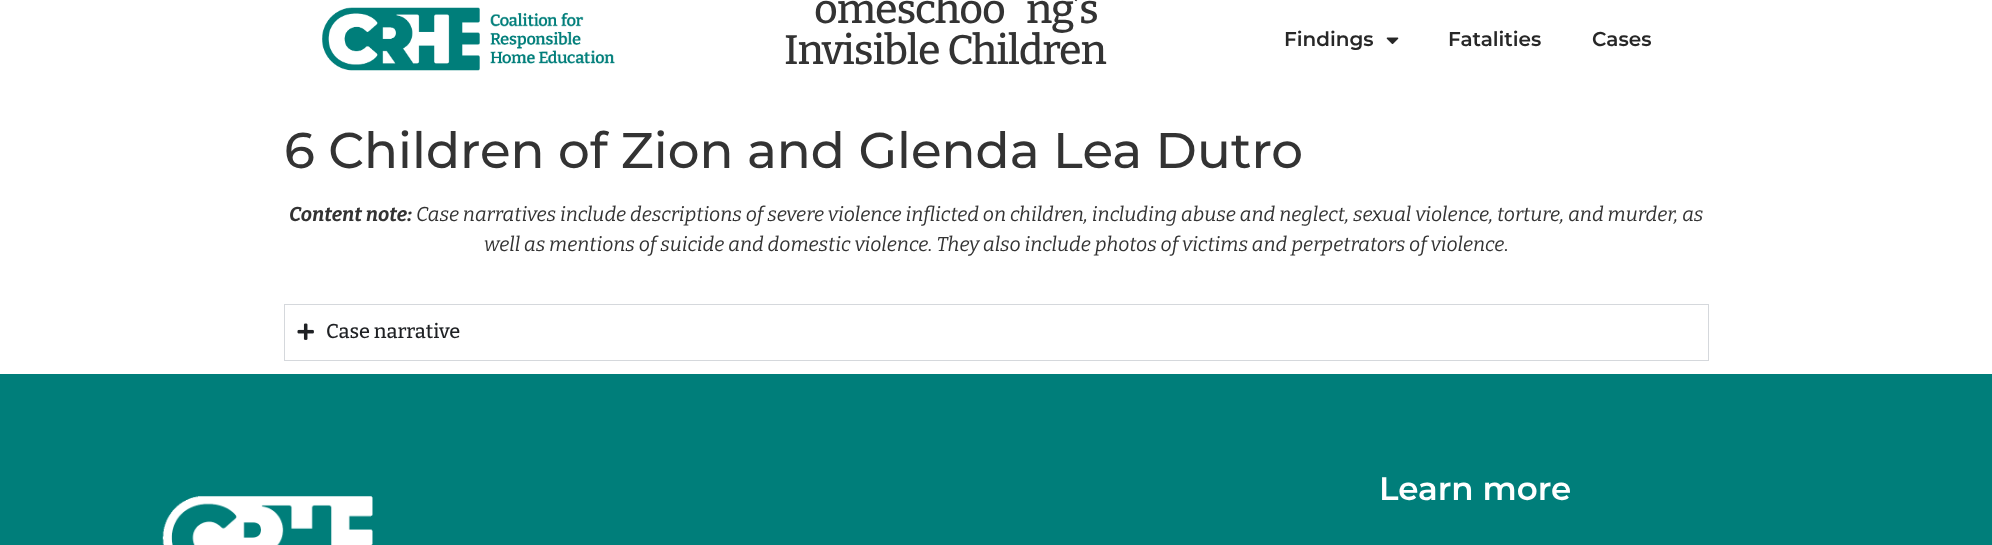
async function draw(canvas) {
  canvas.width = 1992
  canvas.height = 545
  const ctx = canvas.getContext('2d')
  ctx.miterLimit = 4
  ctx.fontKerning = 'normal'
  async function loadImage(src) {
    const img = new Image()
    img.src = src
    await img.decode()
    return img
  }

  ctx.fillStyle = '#fff'
  ctx.fillRect(0, 0, 1992, 545)
  ctx.drawImage(await loadImage('image0.png'), 322, 7, 293, 64)
  ctx.letterSpacing = '-1.1px'
  ctx.font = '500 41.25px Bitter'
  ctx.fillStyle = '#333'
  ctx.fillText('omeschoo', 814, 23)
  ctx.fillText('ng’s', 1026, 23)
  ctx.wordSpacing = '1px'
  ctx.fillText('Invisible Children', 784, 64)
  ctx.letterSpacing = '0px'
  ctx.wordSpacing = '0px'
  ctx.font = '600 20px Montserrat'
  ctx.fillStyle = '#272727'
  ctx.fillText('Findings', 1284, 46)
  ctx.drawImage(await loadImage('image1.png'), 1386, 37, 13, 8)
  ctx.fillText('Fatalities', 1448, 46)
  ctx.fillText('Cases', 1592, 46)
  ctx.font = '500 50px Montserrat'
  ctx.fillStyle = '#333'
  ctx.fillText('6 Children of Zion and Glenda Lea Dutro', 284, 168)
  ctx.font = 'italic bold 20px Bitter'
  ctx.fillText('Content note:', 289, 221)
  ctx.font = 'italic 20px Bitter'
  ctx.fillText('Case narratives include descriptions of severe violence inflicted on children, including abuse and neglect, sexual violence, torture, and murder, as', 416, 221)
  ctx.fillText('well as mentions of suicide and domestic violence. They also include photos of victims and perpetrators of violence.', 484, 251)
  ctx.strokeStyle = '#d5d8dc'
  ctx.strokeRect(284.5, 304.5, 1424, 56)
  ctx.drawImage(await loadImage('image2.png'), 297, 323, 17, 17)
  ctx.font = '500 20px Bitter'
  ctx.fillStyle = '#1f2124'
  ctx.fillText('Case narrative', 326, 338)
  ctx.fillStyle = '#007e7a'
  ctx.fillRect(0, 374, 1992, 171)
  ctx.font = '600 32.5px Montserrat'
  ctx.fillStyle = '#fff'
  ctx.fillText('Learn more', 1379, 500)
  ctx.drawImage(await loadImage('image3.png'), 162, 496, 211, 49)
}

draw(document.querySelector('canvas'))
